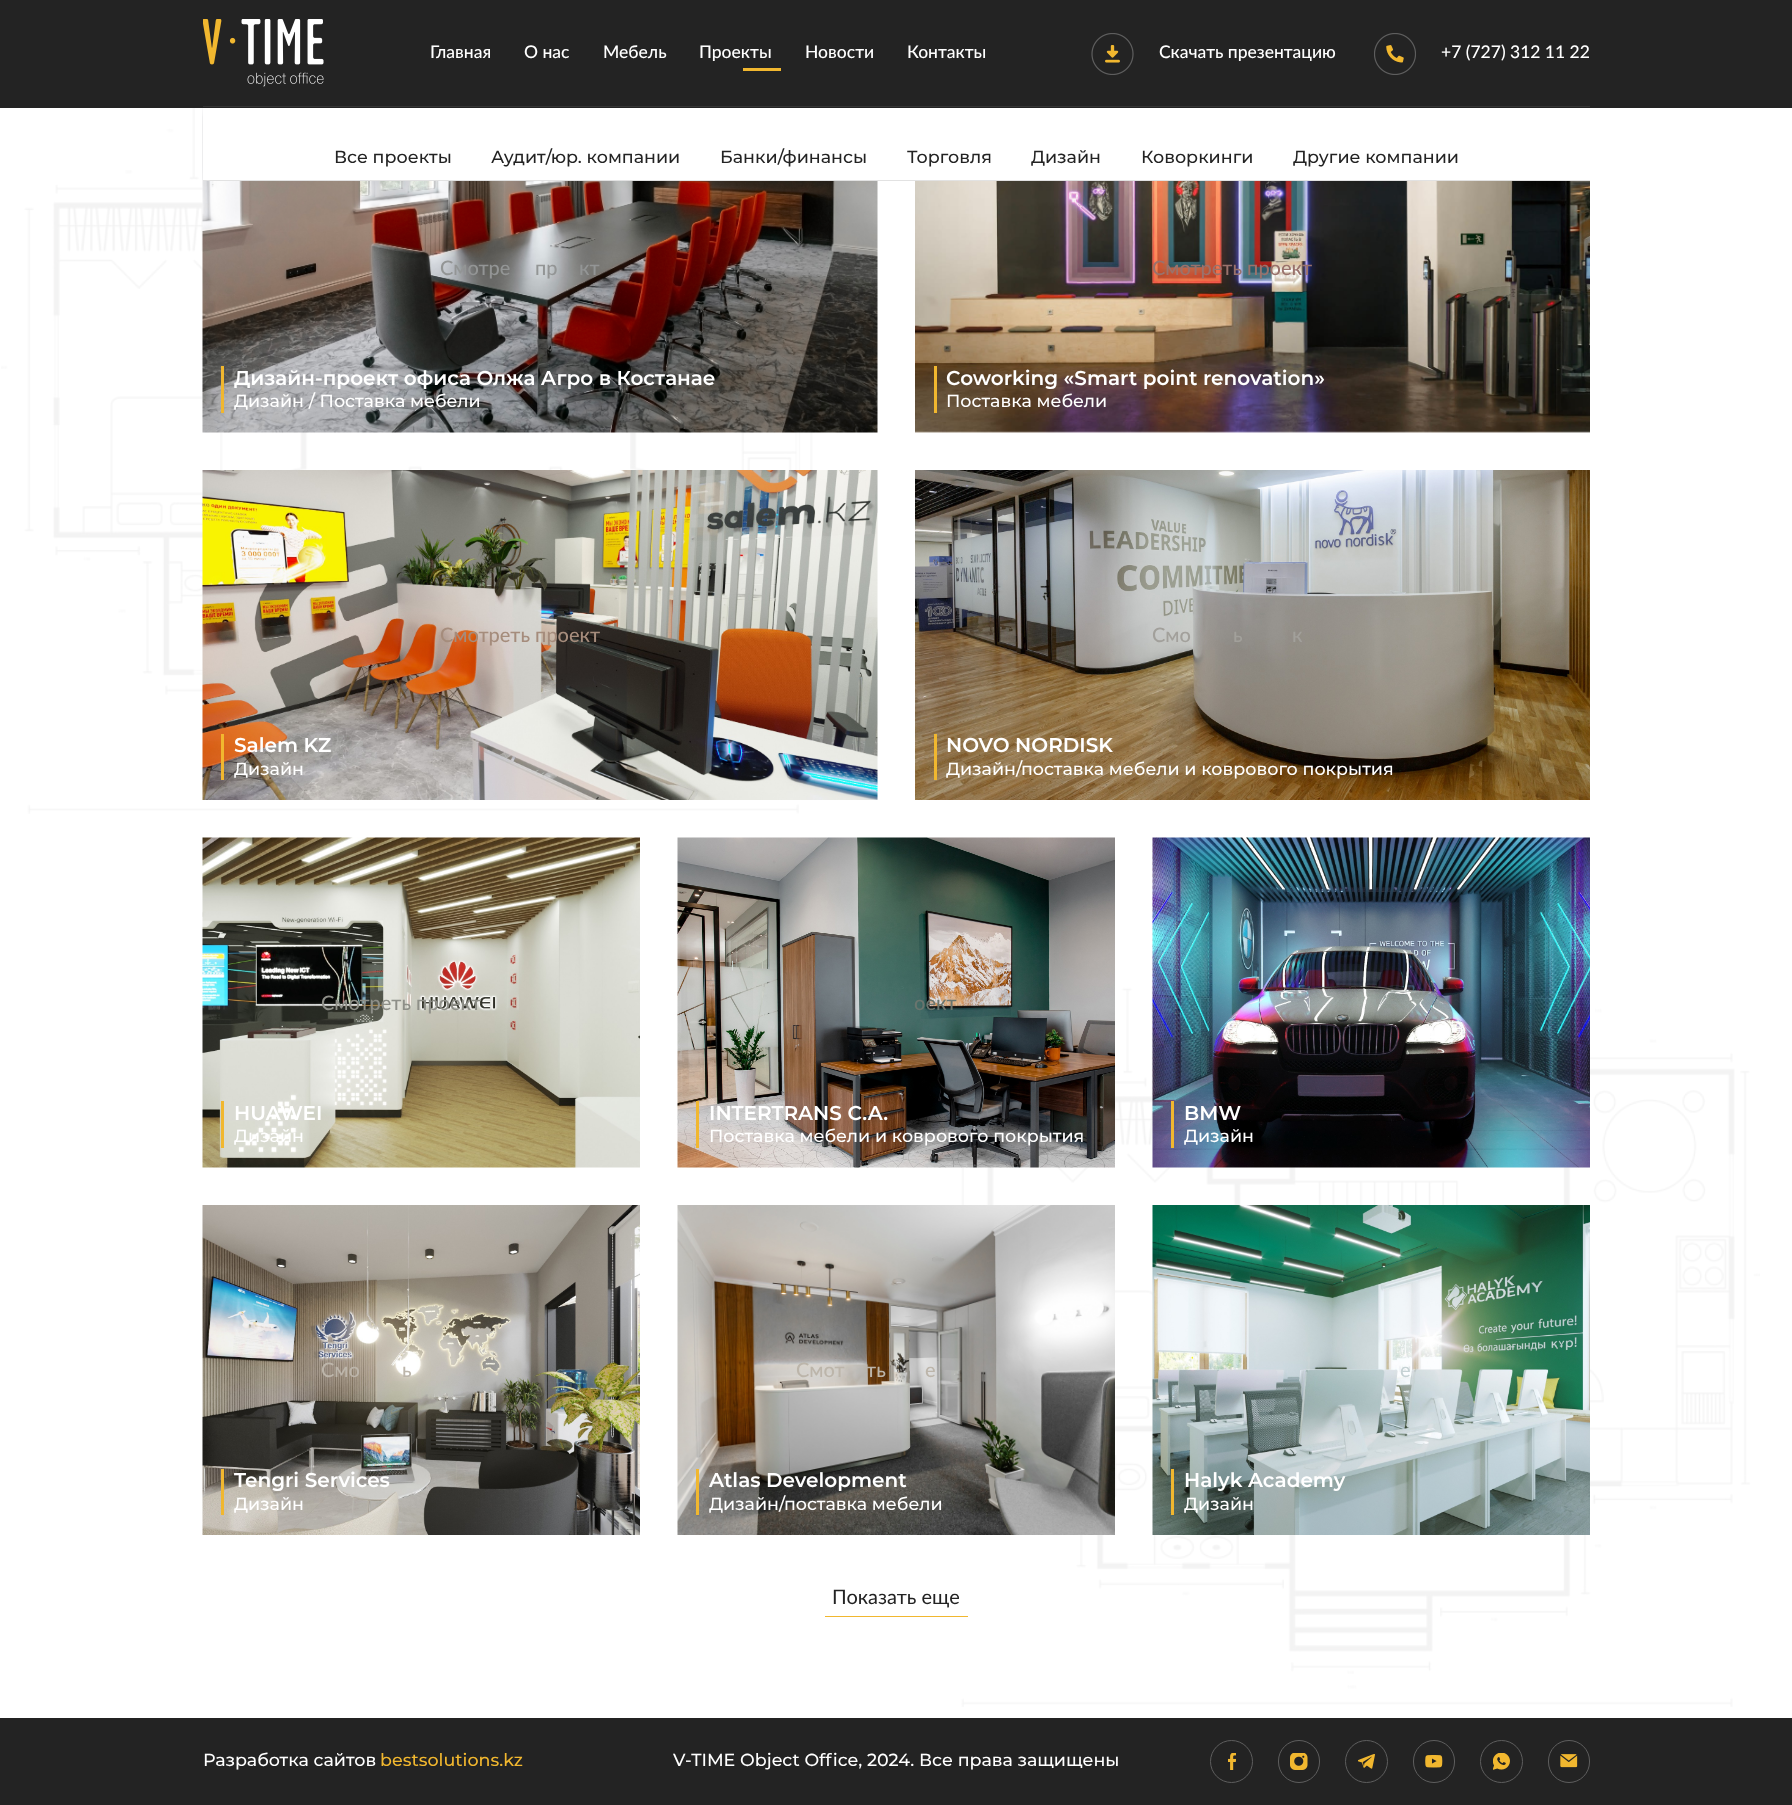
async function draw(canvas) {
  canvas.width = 1792
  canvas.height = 1805
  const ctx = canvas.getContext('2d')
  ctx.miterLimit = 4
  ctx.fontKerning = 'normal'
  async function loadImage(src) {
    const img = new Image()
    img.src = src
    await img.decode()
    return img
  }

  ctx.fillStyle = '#fff'
  ctx.fillRect(0, 0, 1792, 1805)
  ctx.fillStyle = '#232323'
  ctx.fillRect(0, 0, 1792, 108)
  ctx.fillStyle = '#353535'
  ctx.fillRect(203, 106, 1387, 1)
  ctx.drawImage(await loadImage('image0.png'), 203, 19, 121, 68)
  ctx.font = '500 17.5px Lato'
  ctx.fillStyle = '#fff'
  ctx.fillText('Главная', 430, 58)
  ctx.fillText('О нас', 524, 58)
  ctx.fillText('Мебель', 603, 58)
  ctx.fillText('Проекты', 699, 58)
  ctx.fillStyle = '#f1b72f'
  ctx.fillRect(743, 68, 38, 3)
  ctx.fillStyle = '#fff'
  ctx.fillText('Новости', 805, 58)
  ctx.fillText('Контакты', 907, 58)
  ctx.drawImage(await loadImage('image1.png'), 1091, 33, 43, 42)
  ctx.fillText('Скачать презентацию', 1159, 58)
  ctx.drawImage(await loadImage('image2.png'), 1374, 33, 42, 42)
  ctx.fillText('+7 (727) 312 11 22', 1441, 58)
  ctx.drawImage(await loadImage('image3.png'), 1, 108, 825, 706)
  ctx.drawImage(await loadImage('image4.png'), 202, 108, 676, 325)
  ctx.fillRect(203, 108, 675, 72)
  ctx.fillStyle = '#e2e2e2'
  ctx.fillRect(203, 180, 1387, 1)
  ctx.font = '500 17.5px Montserrat'
  ctx.fillStyle = '#232323'
  ctx.fillText('Все проекты', 334, 163)
  ctx.fillText('Аудит/юр. компании', 491, 163)
  ctx.fillText('Банки/финансы', 720, 163)
  ctx.fillText('Торговля', 907, 163)
  ctx.fillText('Дизайн', 1031, 163)
  ctx.fillText('Коворкинги', 1141, 163)
  ctx.fillText('Другие компании', 1293, 163)
  ctx.font = '500 20px Lato'
  ctx.fillStyle = '#939595'
  ctx.fillText('Смотре', 440, 275)
  ctx.fillText('пр', 535, 275)
  ctx.fillText('кт', 579, 275)
  ctx.fillStyle = '#f1b72f'
  ctx.fillRect(221, 366, 3, 47)
  ctx.font = '600 20px Montserrat'
  ctx.fillStyle = '#fff'
  ctx.fillText('Дизайн-проект офиса Олжа Агро в Костанае', 234, 385)
  ctx.font = '500 17.5px Montserrat'
  ctx.fillText('Дизайн / Поставка мебели', 234, 407)
  ctx.drawImage(await loadImage('image5.png'), 915, 181, 675, 252)
  ctx.font = '500 20px Lato'
  ctx.fillStyle = '#9a726c'
  ctx.fillText('Смотреть проект', 1152, 275)
  ctx.fillStyle = '#f1b72f'
  ctx.fillRect(934, 366, 3, 47)
  ctx.font = '600 20px Montserrat'
  ctx.fillStyle = '#fff'
  ctx.fillText('Coworking «Smart point renovation»', 946, 385)
  ctx.font = '500 17.5px Montserrat'
  ctx.fillText('Поставка мебели', 946, 407)
  ctx.drawImage(await loadImage('image6.png'), 202, 470, 676, 330)
  ctx.font = '500 20px Lato'
  ctx.fillStyle = '#a58c7c'
  ctx.fillText('Смотреть проект', 440, 642)
  ctx.fillStyle = '#f1b72f'
  ctx.fillRect(221, 734, 3, 46)
  ctx.font = '600 20px Montserrat'
  ctx.fillStyle = '#fff'
  ctx.fillText('Salem KZ', 234, 752)
  ctx.font = '500 17.5px Montserrat'
  ctx.fillText('Дизайн', 234, 775)
  ctx.drawImage(await loadImage('image7.png'), 915, 470, 675, 330)
  ctx.font = '500 20px Lato'
  ctx.fillStyle = '#a2a09b'
  ctx.fillText('Смо', 1152, 642)
  ctx.fillText('ь', 1233, 642)
  ctx.fillText('к', 1292, 642)
  ctx.fillStyle = '#f1b72f'
  ctx.fillRect(934, 734, 3, 46)
  ctx.font = '600 20px Montserrat'
  ctx.fillStyle = '#fff'
  ctx.fillText('NOVO NORDISK', 946, 752)
  ctx.font = '500 17.5px Montserrat'
  ctx.fillText('Дизайн/поставка мебели и коврового покрытия', 946, 775)
  ctx.drawImage(await loadImage('image8.png'), 202, 837, 438, 331)
  ctx.font = '500 20px Lato'
  ctx.fillStyle = '#8e8f88'
  ctx.fillText('Смотреть проект', 321, 1010)
  ctx.fillStyle = '#f1b72f'
  ctx.fillRect(221, 1101, 3, 47)
  ctx.font = '600 20px Montserrat'
  ctx.fillStyle = '#fff'
  ctx.fillText('HUAWEI', 234, 1120)
  ctx.font = '500 17.5px Montserrat'
  ctx.fillText('Дизайн', 234, 1142)
  ctx.drawImage(await loadImage('image14.png'), 935, 955, 825, 752)
  ctx.drawImage(await loadImage('image9.png'), 677, 837, 438, 331)
  ctx.font = '500 20px Lato'
  ctx.fillStyle = '#6a756e'
  ctx.fillText('оект', 914, 1010)
  ctx.fillStyle = '#f1b72f'
  ctx.fillRect(696, 1101, 3, 47)
  ctx.font = '600 20px Montserrat'
  ctx.fillStyle = '#fff'
  ctx.fillText('INTERTRANS C.A.', 709, 1120)
  ctx.font = '500 17.5px Montserrat'
  ctx.fillText('Поставка мебели и коврового покрытия', 709, 1142)
  ctx.drawImage(await loadImage('image10.png'), 1152, 837, 438, 331)
  ctx.fillStyle = '#f1b72f'
  ctx.fillRect(1171, 1101, 3, 47)
  ctx.font = '600 20px Montserrat'
  ctx.fillStyle = '#fff'
  ctx.fillText('BMW', 1184, 1120)
  ctx.font = '500 17.5px Montserrat'
  ctx.fillText('Дизайн', 1184, 1142)
  ctx.drawImage(await loadImage('image11.png'), 202, 1205, 438, 330)
  ctx.font = '500 20px Lato'
  ctx.fillStyle = '#bcb5aa'
  ctx.fillText('Смо', 321, 1377)
  ctx.fillText('ь', 402, 1377)
  ctx.fillStyle = '#f1b72f'
  ctx.fillRect(221, 1469, 3, 46)
  ctx.font = '600 20px Montserrat'
  ctx.fillStyle = '#fff'
  ctx.fillText('Tengri Services', 234, 1487)
  ctx.font = '500 17.5px Montserrat'
  ctx.fillText('Дизайн', 234, 1510)
  ctx.drawImage(await loadImage('image12.png'), 677, 1205, 438, 330)
  ctx.font = '500 20px Lato'
  ctx.fillStyle = '#bcb5aa'
  ctx.fillText('Смот', 796, 1377)
  ctx.fillText('ть', 866, 1377)
  ctx.fillText('е', 925, 1377)
  ctx.fillStyle = '#f1b72f'
  ctx.fillRect(696, 1469, 3, 46)
  ctx.font = '600 20px Montserrat'
  ctx.fillStyle = '#fff'
  ctx.fillText('Atlas Development', 709, 1487)
  ctx.font = '500 17.5px Montserrat'
  ctx.fillText('Дизайн/поставка мебели', 709, 1510)
  ctx.drawImage(await loadImage('image13.png'), 1152, 1205, 438, 330)
  ctx.font = '500 20px Lato'
  ctx.fillStyle = '#c6d2d4'
  ctx.fillText('е', 1400, 1377)
  ctx.fillStyle = '#f1b72f'
  ctx.fillRect(1171, 1469, 3, 46)
  ctx.font = '600 20px Montserrat'
  ctx.fillStyle = '#fff'
  ctx.fillText('Halyk Academy', 1184, 1487)
  ctx.font = '500 17.5px Montserrat'
  ctx.fillText('Дизайн', 1184, 1510)
  ctx.fillStyle = '#f1b72f'
  ctx.fillRect(825, 1616, 143, 1)
  ctx.font = '20px Lato'
  ctx.fillStyle = '#232323'
  ctx.fillText('Показать еще', 832, 1604)
  ctx.fillRect(0, 1718, 1792, 87)
  ctx.font = '500 17.5px Montserrat'
  ctx.fillStyle = '#fff'
  ctx.fillText('Разработка сайтов', 203, 1766)
  ctx.fillStyle = '#f1b72f'
  ctx.fillText('bestsolutions.kz', 380, 1766)
  ctx.fillStyle = '#fff'
  ctx.fillText('V-TIME Object Office, 2024. Все права защищены', 673, 1766)
  ctx.beginPath()
  ctx.arc(1231.5, 1761.5, 21, 0, 2 * Math.PI)
  ctx.strokeStyle = '#5e5e5e'
  ctx.stroke()
  ctx.drawImage(await loadImage('image15.png'), 1228, 1753, 8, 17)
  ctx.beginPath()
  ctx.roundRect(1278.5, 1740.5, 41, 42, 20.5)
  ctx.stroke()
  ctx.drawImage(await loadImage('image16.png'), 1290, 1753, 18, 17)
  ctx.beginPath()
  ctx.arc(1366.5, 1761.5, 21, 0, 2 * Math.PI)
  ctx.stroke()
  ctx.drawImage(await loadImage('image17.png'), 1358, 1754, 17, 15)
  ctx.beginPath()
  ctx.roundRect(1413.5, 1740.5, 41, 42, 20.5)
  ctx.stroke()
  ctx.drawImage(await loadImage('image18.png'), 1425, 1755, 18, 13)
  ctx.beginPath()
  ctx.arc(1501.5, 1761.5, 21, 0, 2 * Math.PI)
  ctx.stroke()
  ctx.drawImage(await loadImage('image19.png'), 1493, 1753, 17, 17)
  ctx.beginPath()
  ctx.roundRect(1548.5, 1740.5, 41, 42, 20.5)
  ctx.stroke()
  ctx.drawImage(await loadImage('image20.png'), 1560, 1754, 18, 14)
}

draw(document.querySelector('canvas'))
